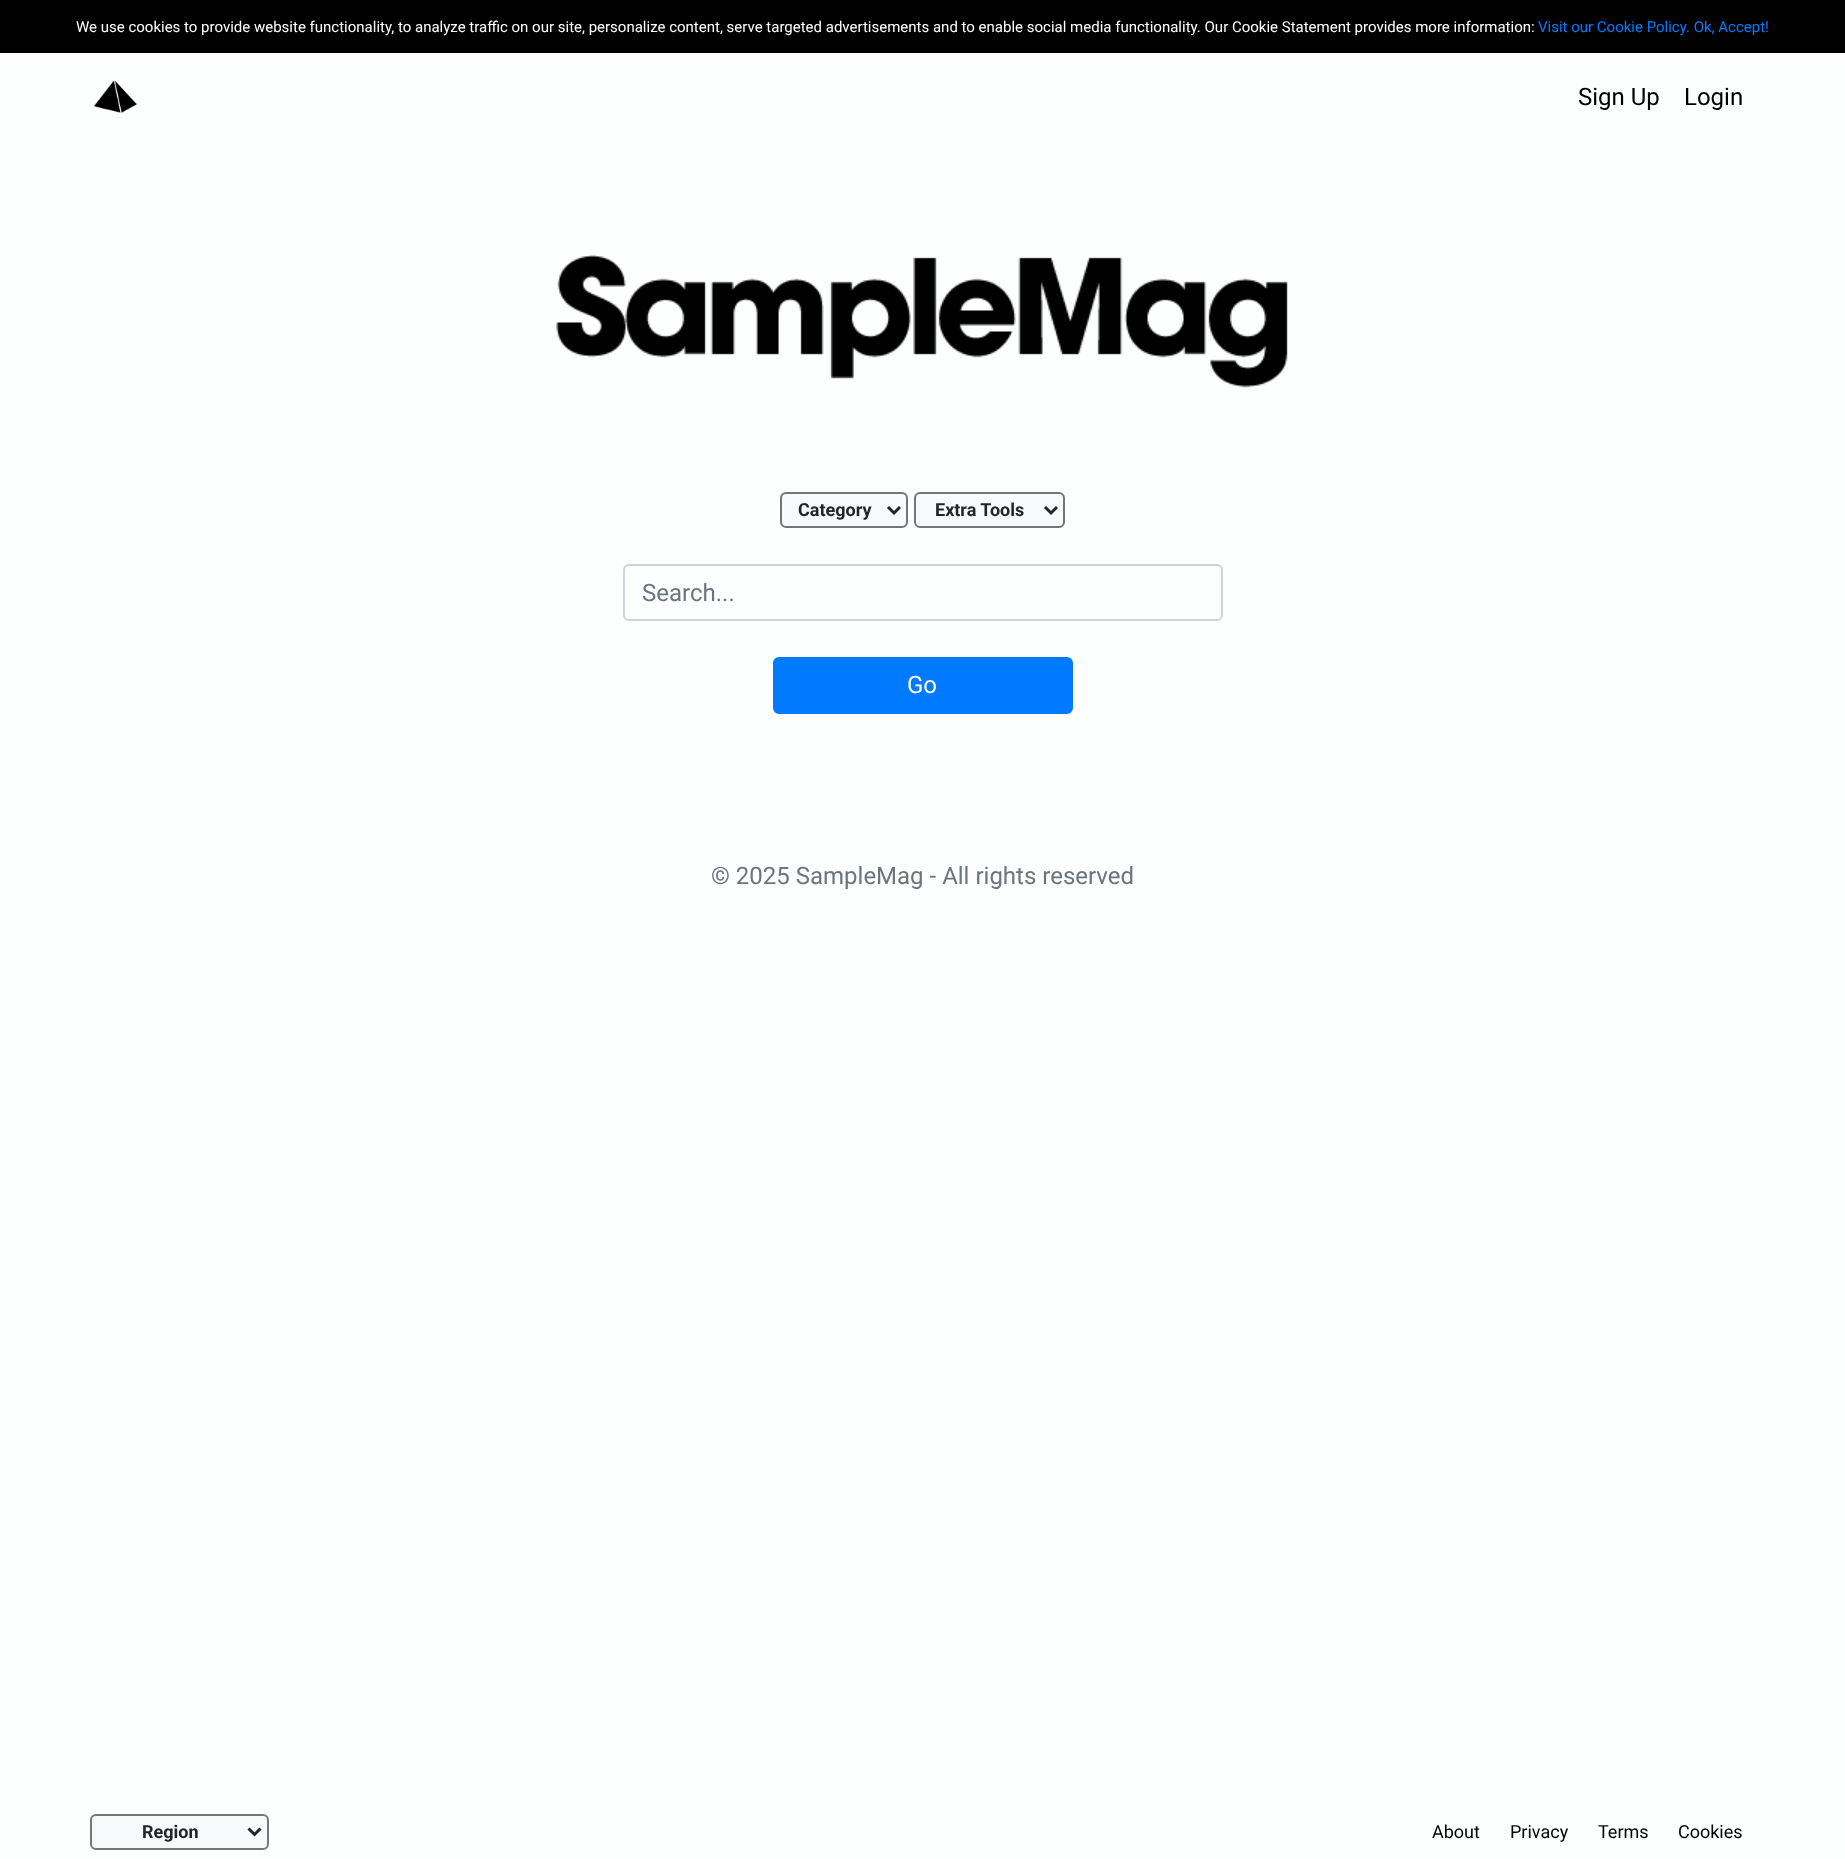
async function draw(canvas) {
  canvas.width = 1845
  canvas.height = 1859
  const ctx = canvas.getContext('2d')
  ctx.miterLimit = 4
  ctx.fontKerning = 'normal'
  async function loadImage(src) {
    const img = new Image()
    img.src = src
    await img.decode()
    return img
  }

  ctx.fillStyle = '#fdfefe'
  ctx.fillRect(0, 0, 1845, 1859)
  ctx.fillStyle = '#000'
  ctx.fillRect(0, 0, 1845, 53)
  ctx.font = '15px Roboto'
  ctx.fillStyle = '#fff'
  ctx.fillText('We use cookies to provide website functionality, to analyze traffic on our site, personalize content, serve targeted advertisements and to enable social media functionality. Our Cookie Statement provides more information:', 76, 32)
  ctx.fillStyle = '#007bff'
  ctx.fillText('Visit our Cookie Policy. Ok, Accept!', 1538, 32)
  ctx.drawImage(await loadImage('image0.png'), 94, 80, 44, 33)
  ctx.font = '24px Roboto'
  ctx.fillStyle = '#000'
  ctx.fillText('Sign Up', 1578, 105)
  ctx.fillText('Login', 1684, 105)
  ctx.drawImage(await loadImage('image1.png'), 556, 254, 732, 134)
  ctx.fillStyle = '#f8f9fa'
  ctx.beginPath()
  ctx.roundRect(781, 493, 126, 34, 5)
  ctx.fill()
  ctx.strokeStyle = '#767676'
  ctx.lineWidth = 2
  ctx.stroke()
  ctx.beginPath()
  ctx.moveTo(888, 507)
  ctx.lineTo(894, 513)
  ctx.lineTo(900, 507)
  ctx.strokeStyle = '#212529'
  ctx.lineWidth = 3
  ctx.stroke()
  ctx.font = 'bold 18px Roboto'
  ctx.fillStyle = '#212529'
  ctx.fillText('Category', 798, 516)
  ctx.fillStyle = '#f8f9fa'
  ctx.beginPath()
  ctx.roundRect(915, 493, 149, 34, 5)
  ctx.fill()
  ctx.strokeStyle = '#767676'
  ctx.lineWidth = 2
  ctx.stroke()
  ctx.beginPath()
  ctx.moveTo(1045, 507)
  ctx.lineTo(1051, 513)
  ctx.lineTo(1057, 507)
  ctx.strokeStyle = '#212529'
  ctx.lineWidth = 3
  ctx.stroke()
  ctx.fillStyle = '#212529'
  ctx.fillText('Extra Tools', 935, 516)
  ctx.beginPath()
  ctx.roundRect(624, 565, 598, 55, 5)
  ctx.strokeStyle = '#ced4da'
  ctx.lineWidth = 2
  ctx.stroke()
  ctx.font = '24px Roboto'
  ctx.fillStyle = '#6c757d'
  ctx.fillText('Search...', 642, 601)
  ctx.fillStyle = '#007bff'
  ctx.beginPath()
  ctx.roundRect(774, 658, 298, 55, 5)
  ctx.fill()
  ctx.strokeStyle = '#007bff'
  ctx.stroke()
  ctx.fillStyle = '#fff'
  ctx.fillText('Go', 907, 693)
  ctx.fillStyle = '#6c757d'
  ctx.fillText('© 2025 SampleMag - All rights reserved', 711, 884)
  ctx.fillStyle = '#f8f9fa'
  ctx.beginPath()
  ctx.roundRect(91, 1815, 177, 34, 5)
  ctx.fill()
  ctx.strokeStyle = '#767676'
  ctx.stroke()
  ctx.beginPath()
  ctx.moveTo(248.5, 1828.5)
  ctx.lineTo(254.5, 1834.5)
  ctx.lineTo(260.5, 1828.5)
  ctx.strokeStyle = '#212529'
  ctx.lineWidth = 3
  ctx.stroke()
  ctx.font = 'bold 18px Roboto'
  ctx.fillStyle = '#212529'
  ctx.fillText('Region', 142, 1838)
  ctx.font = '18px Roboto'
  ctx.fillStyle = '#000'
  ctx.fillText('About', 1432, 1838)
  ctx.fillText('Privacy', 1510, 1838)
  ctx.fillText('Terms', 1598, 1838)
  ctx.fillText('Cookies', 1678, 1838)
}

draw(document.querySelector('canvas'))
